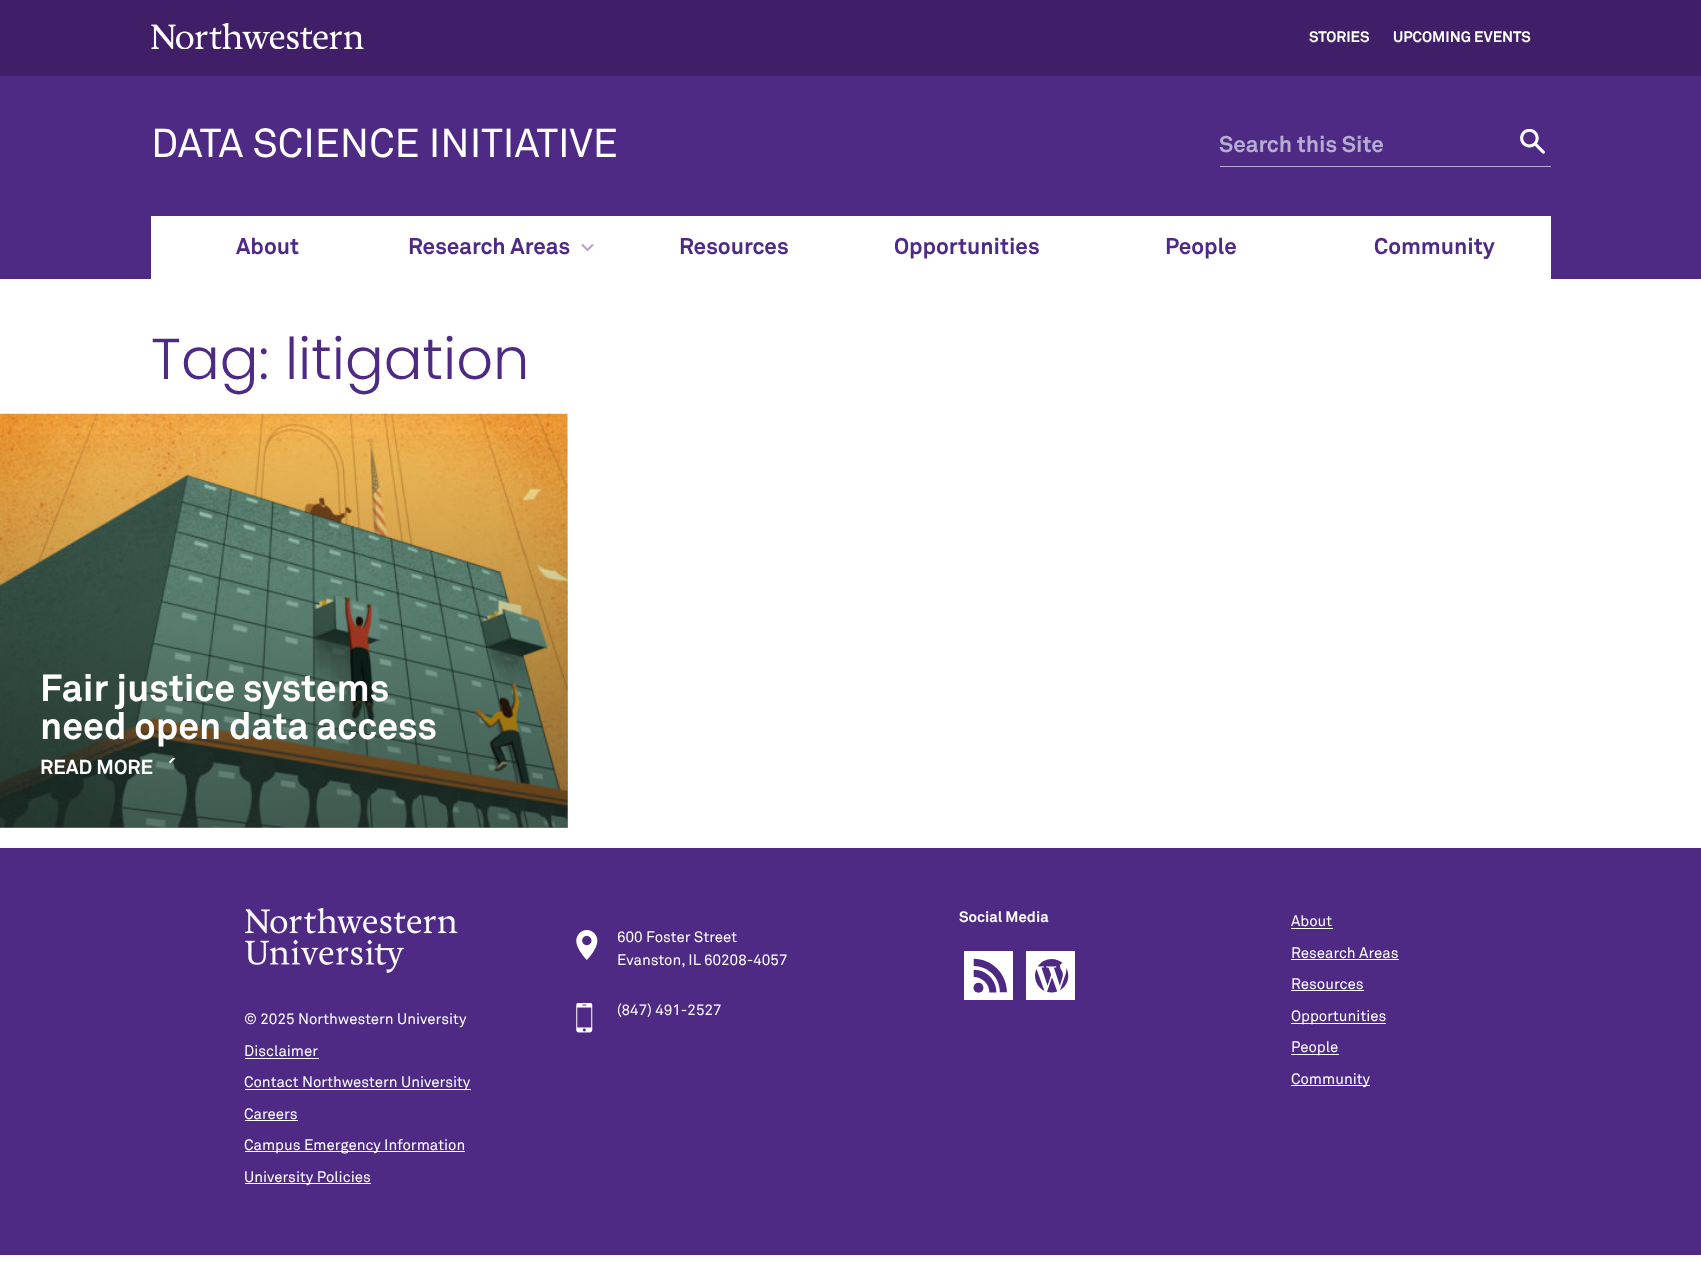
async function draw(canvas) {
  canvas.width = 1701
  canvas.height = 1275
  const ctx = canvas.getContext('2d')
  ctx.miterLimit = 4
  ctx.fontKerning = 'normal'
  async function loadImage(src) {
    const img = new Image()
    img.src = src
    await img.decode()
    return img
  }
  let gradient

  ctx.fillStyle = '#fff'
  ctx.fillRect(0, 0, 1701, 1275)
  ctx.fillStyle = '#4e2a84'
  ctx.fillRect(0, 76, 1701, 203)
  ctx.fillStyle = '#401f68'
  ctx.fillRect(0, 0, 1701, 76)
  ctx.drawImage(await loadImage('image0.png'), 151, 23, 213, 26)
  ctx.font = 'bold 15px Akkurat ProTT'
  ctx.fillStyle = '#fff'
  ctx.fillText('STORIES', 1309, 42)
  ctx.fillText('UPCOMING EVENTS', 1393, 42)
  ctx.font = '40px Akkurat ProTT'
  ctx.fillText('DATA SCIENCE INITIATIVE', 151, 157)
  ctx.fillStyle = '#b6acd1'
  ctx.fillRect(1220, 166, 331, 1)
  ctx.font = 'bold 22.5px Akkurat ProTT'
  ctx.fillText('Search this Site', 1219, 152)
  ctx.drawImage(await loadImage('image1.png'), 1520, 129, 25, 25)
  ctx.fillStyle = '#fff'
  ctx.fillRect(151, 216, 1400, 63)
  ctx.fillStyle = '#4e2a84'
  ctx.fillText('About', 236, 254)
  ctx.fillText('Research Areas', 408, 254)
  ctx.drawImage(await loadImage('image2.png'), 581, 244, 13, 7)
  ctx.fillText('Resources', 679, 254)
  ctx.fillText('Opportunities', 894, 254)
  ctx.fillText('People', 1165, 254)
  ctx.fillText('Community', 1374, 254)
  ctx.font = '300 57.5px Poppins'
  ctx.fillText('Tag: litigation', 151, 379)
  ctx.drawImage(await loadImage('image3.png'), 0, 413, 568, 415)
  gradient = ctx.createLinearGradient(284, 414, 284, 828)
  gradient.addColorStop(0, '#00000000')
  gradient.addColorStop(1, '#00000073')
  ctx.fillStyle = gradient
  ctx.fillRect(0, 434, 568, 394)
  ctx.font = 'bold 37.5px Akkurat ProTT'
  ctx.fillStyle = '#fff'
  ctx.fillText('Fair justice systems', 40, 701)
  ctx.fillText('need open data access', 40, 739)
  ctx.font = 'bold 20px Akkurat ProTT'
  ctx.fillText('READ MORE', 40, 774)
  ctx.drawImage(await loadImage('image4.png'), 169, 758, 7, 6)
  ctx.fillStyle = '#4e2a84'
  ctx.fillRect(0, 848, 1701, 407)
  ctx.drawImage(await loadImage('image5.png'), 576, 930, 22, 30)
  ctx.font = '15px Akkurat ProTT'
  ctx.fillStyle = '#fff'
  ctx.fillText('600 Foster Street', 617, 942)
  ctx.fillText('Evanston, IL 60208-4057', 617, 965)
  ctx.drawImage(await loadImage('image6.png'), 576, 1003, 17, 30)
  ctx.fillText('(847) 491-2527', 617, 1015)
  ctx.font = 'bold 15px Akkurat ProTT'
  ctx.fillText('Social Media', 959, 922)
  ctx.fillRect(964, 951, 49, 49)
  ctx.drawImage(await loadImage('image7.png'), 973, 958, 34, 35)
  ctx.fillRect(1026, 951, 49, 49)
  ctx.drawImage(await loadImage('image8.png'), 1035, 959, 34, 34)
  ctx.font = '15px Akkurat ProTT'
  ctx.fillText('About', 1291, 926)
  ctx.fillRect(1291, 928, 42, 1)
  ctx.fillText('Research Areas', 1291, 958)
  ctx.fillRect(1291, 959, 108, 1)
  ctx.fillText('Resources', 1291, 989)
  ctx.fillRect(1291, 990, 73, 1)
  ctx.fillRect(1291, 1023, 95, 1)
  ctx.fillText('Opportunities', 1291, 1021)
  ctx.fillRect(1291, 1054, 48, 1)
  ctx.fillText('People', 1291, 1052)
  ctx.fillRect(1291, 1085, 79, 1)
  ctx.fillText('Community', 1291, 1084)
  ctx.drawImage(await loadImage('image9.png'), 245, 908, 213, 65)
  ctx.fillText('© 2025 Northwestern University', 244, 1024)
  ctx.fillText('Disclaimer', 244, 1056)
  ctx.fillRect(245, 1058, 74, 1)
  ctx.fillRect(245, 1089, 226, 1)
  ctx.fillText('Contact Northwestern University', 244, 1087)
  ctx.fillText('Careers', 244, 1119)
  ctx.fillRect(245, 1120, 53, 1)
  ctx.fillRect(245, 1151, 220, 1)
  ctx.fillText('Campus Emergency Information', 244, 1150)
  ctx.fillRect(245, 1183, 126, 1)
  ctx.fillText('University Policies', 244, 1182)
}

draw(document.querySelector('canvas'))
